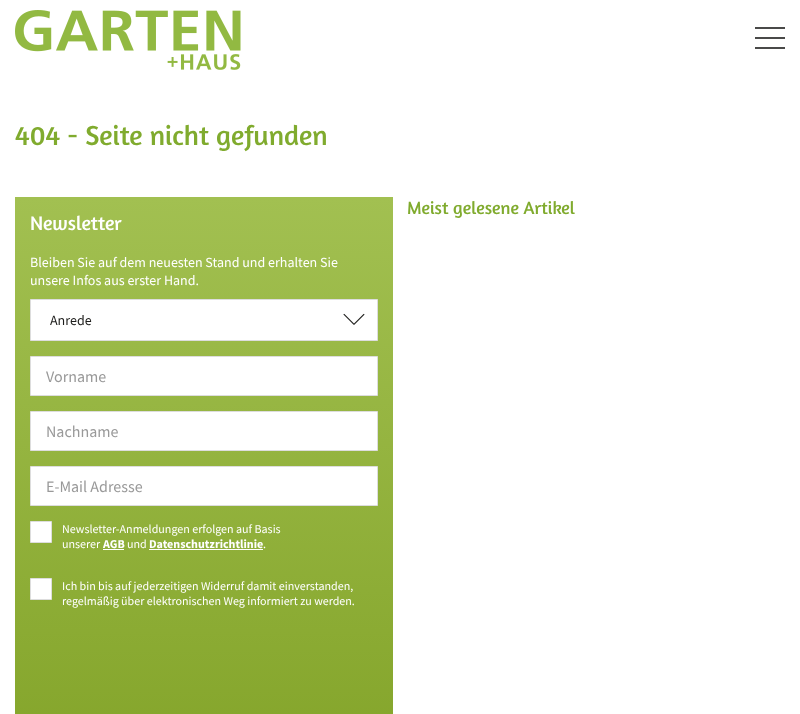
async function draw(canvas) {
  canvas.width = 800
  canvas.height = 714
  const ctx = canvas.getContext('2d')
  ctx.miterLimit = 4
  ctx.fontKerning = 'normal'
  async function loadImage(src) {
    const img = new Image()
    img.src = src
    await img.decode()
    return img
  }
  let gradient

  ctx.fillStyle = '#fff'
  ctx.fillRect(0, 0, 800, 714)
  ctx.drawImage(await loadImage('image0.png'), 15, 10, 226, 60)
  ctx.fillStyle = '#4a4a49'
  ctx.fillRect(755, 27, 30, 2)
  ctx.fillRect(755, 37, 30, 2)
  ctx.fillRect(755, 47, 30, 2)
  ctx.font = '28px Amaranth'
  ctx.fillStyle = '#80ab2e'
  ctx.fillText('404 - Seite nicht gefunden', 15, 145)
  ctx.font = '18px Amaranth'
  ctx.fillText('Meist gelesene Artikel', 407, 214)
  gradient = ctx.createLinearGradient(204, 197, 204, 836)
  gradient.addColorStop(0, '#a2c051')
  gradient.addColorStop(1, '#80a125')
  ctx.fillStyle = gradient
  ctx.fillRect(15, 197, 378, 517)
  ctx.font = '20px Amaranth'
  ctx.fillStyle = '#fff'
  ctx.fillText('Newsletter', 30, 230)
  ctx.font = '14px Source Sans Pro'
  ctx.fillText('Bleiben Sie auf dem neuesten Stand und erhalten Sie', 30, 267)
  ctx.fillText('unsere Infos aus erster Hand.', 30, 285)
  ctx.beginPath()
  ctx.rect(30.5, 299.5, 347, 41)
  ctx.fill()
  ctx.strokeStyle = '#ddd'
  ctx.stroke()
  ctx.fillStyle = '#1d1d1b'
  ctx.fillText('Anrede', 50, 325)
  ctx.drawImage(await loadImage('image1.png'), 343, 313, 22, 12)
  ctx.fillStyle = '#fff'
  ctx.beginPath()
  ctx.rect(30.5, 356.5, 347, 39)
  ctx.fill()
  ctx.stroke()
  ctx.font = '16px Source Sans Pro'
  ctx.fillStyle = '#999'
  ctx.fillText('Vorname', 46, 382)
  ctx.fillStyle = '#fff'
  ctx.beginPath()
  ctx.rect(30.5, 411.5, 347, 39)
  ctx.fill()
  ctx.stroke()
  ctx.fillStyle = '#999'
  ctx.fillText('Nachname', 46, 437)
  ctx.fillStyle = '#fff'
  ctx.beginPath()
  ctx.rect(30.5, 466.5, 347, 39)
  ctx.fill()
  ctx.stroke()
  ctx.fillStyle = '#999'
  ctx.fillText('E-Mail Adresse', 46, 492)
  ctx.fillStyle = '#fff'
  ctx.beginPath()
  ctx.rect(30.5, 521.5, 21, 21)
  ctx.fill()
  ctx.stroke()
  ctx.font = '12px Source Sans Pro'
  ctx.fillText('Newsletter-Anmeldungen erfolgen auf Basis', 62, 533)
  ctx.fillText('unserer', 62, 548)
  ctx.font = 'bold 12px Source Sans Pro'
  ctx.fillText('AGB', 103, 548)
  ctx.fillRect(103, 549, 21, 1)
  ctx.font = '12px Source Sans Pro'
  ctx.fillText('und', 127, 548)
  ctx.font = 'bold 12px Source Sans Pro'
  ctx.fillText('Datenschutzrichtlinie', 149, 548)
  ctx.fillRect(149, 549, 114, 1)
  ctx.font = '12px Source Sans Pro'
  ctx.fillText('.', 263, 548)
  ctx.beginPath()
  ctx.rect(30.5, 578.5, 21, 21)
  ctx.fill()
  ctx.stroke()
  ctx.fillText('Ich bin bis auf jederzeitigen Widerruf damit einverstanden,', 62, 590)
  ctx.fillText('regelmäßig über elektronischen Weg informiert zu werden.', 62, 605)
}

draw(document.querySelector('canvas'))
